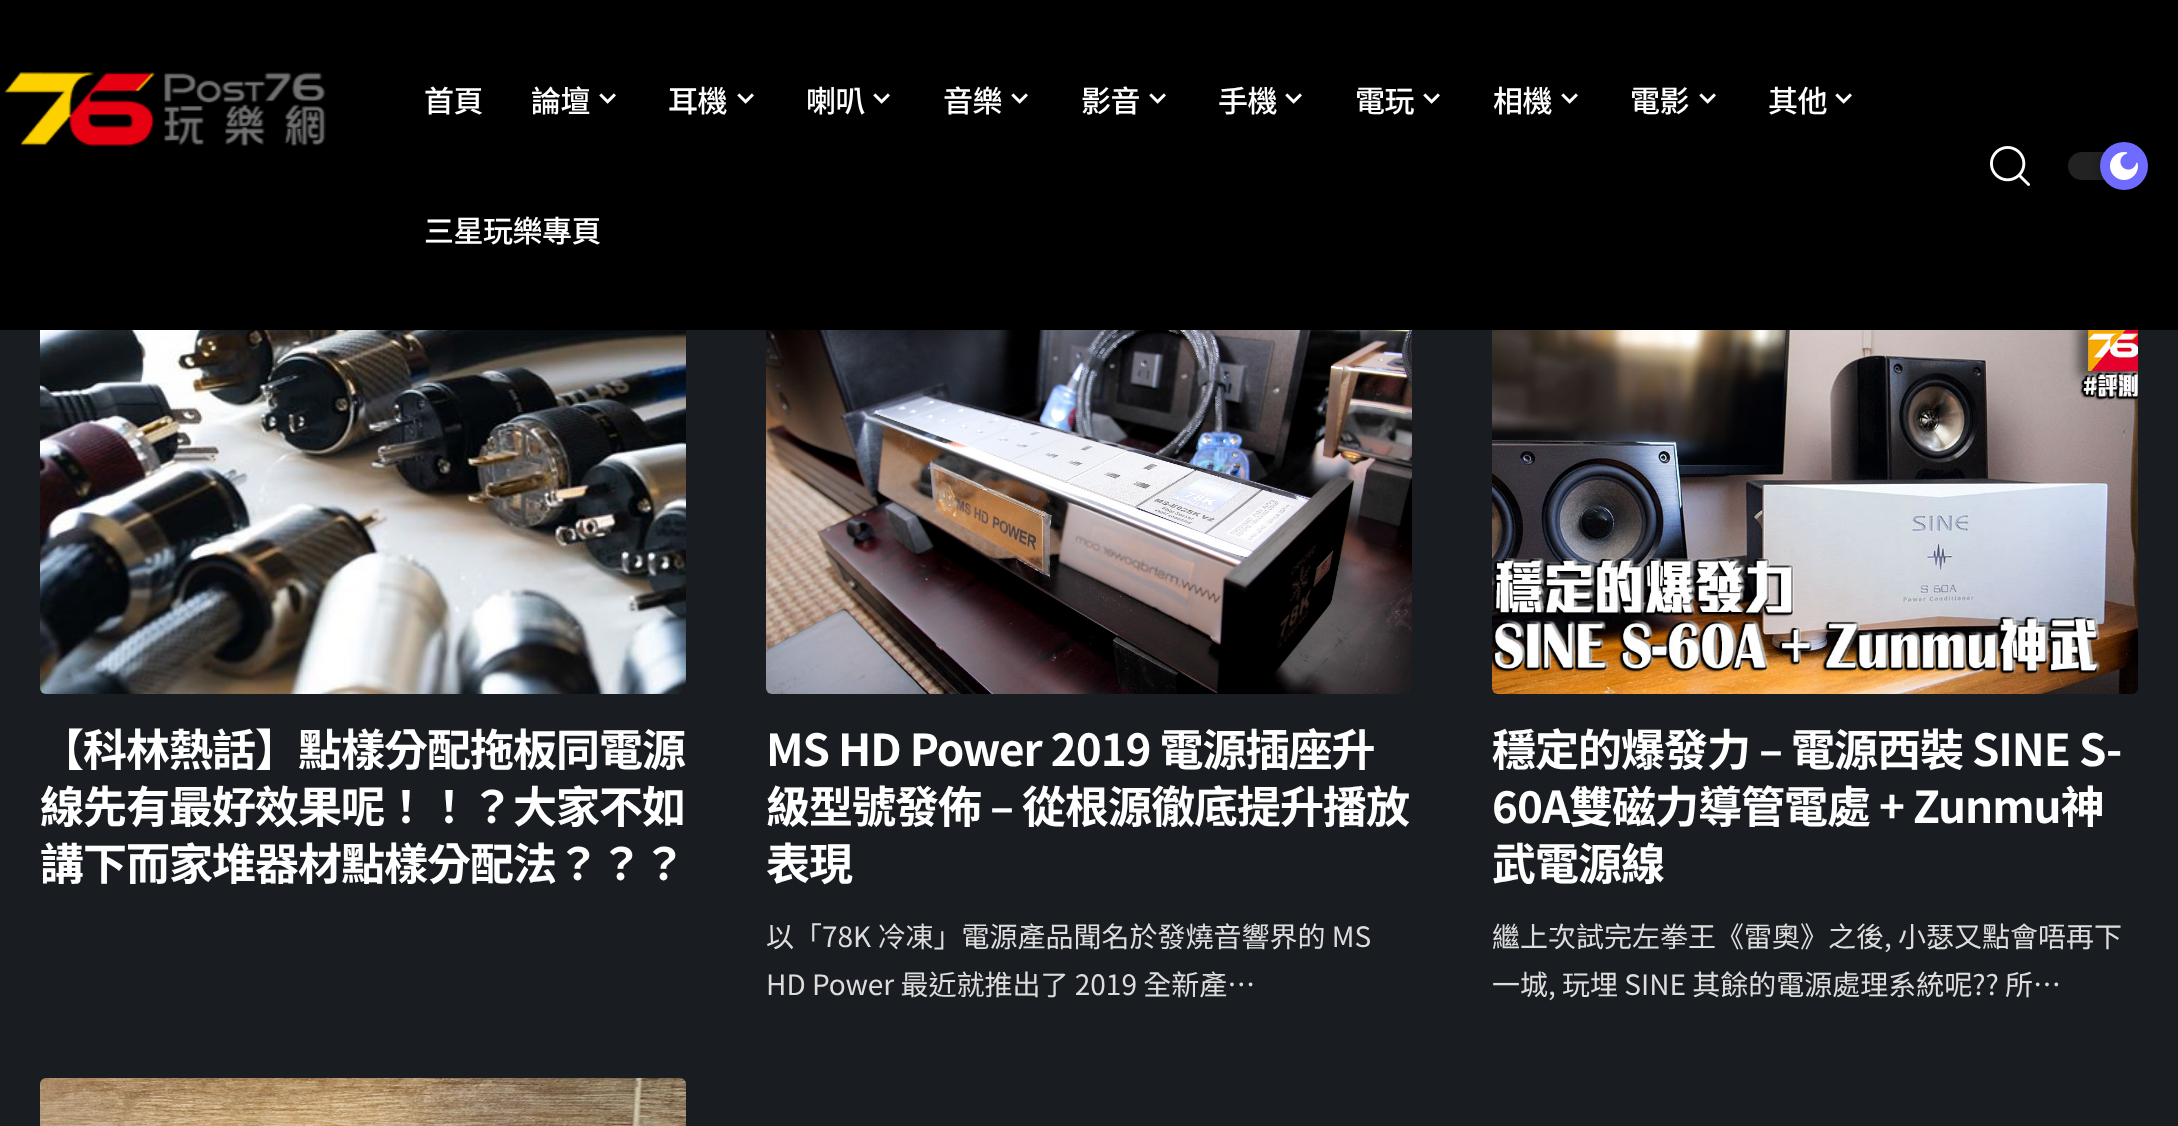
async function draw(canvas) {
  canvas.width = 2178
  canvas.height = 1126
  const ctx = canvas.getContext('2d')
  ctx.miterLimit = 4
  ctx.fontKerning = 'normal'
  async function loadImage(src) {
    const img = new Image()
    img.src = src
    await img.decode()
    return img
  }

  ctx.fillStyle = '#191c20'
  ctx.fillRect(0, 0, 2178, 1126)
  ctx.fillStyle = '#000'
  ctx.fillRect(0, 0, 2178, 330)
  ctx.drawImage(await loadImage('image0.png'), 4, 72, 322, 74)
  ctx.letterSpacing = '-0.5px'
  ctx.font = '500 30px Noto Sans TC'
  ctx.fillStyle = '#fff'
  ctx.fillText('首頁', 424, 112)
  ctx.fillText('論壇', 531, 112)
  ctx.drawImage(await loadImage('image1.png'), 599, 93, 17, 11)
  ctx.fillText('耳機', 668, 112)
  ctx.drawImage(await loadImage('image1.png'), 737, 93, 17, 11)
  ctx.fillText('喇叭', 806, 112)
  ctx.drawImage(await loadImage('image1.png'), 873, 93, 17, 11)
  ctx.fillText('音樂', 943, 112)
  ctx.drawImage(await loadImage('image1.png'), 1011, 93, 17, 11)
  ctx.fillText('影音', 1081, 112)
  ctx.drawImage(await loadImage('image1.png'), 1149, 93, 17, 11)
  ctx.fillText('手機', 1218, 112)
  ctx.drawImage(await loadImage('image1.png'), 1285, 93, 17, 11)
  ctx.fillText('電玩', 1355, 112)
  ctx.drawImage(await loadImage('image1.png'), 1423, 93, 17, 11)
  ctx.fillText('相機', 1493, 112)
  ctx.drawImage(await loadImage('image1.png'), 1561, 93, 17, 11)
  ctx.fillText('電影', 1630, 112)
  ctx.drawImage(await loadImage('image1.png'), 1699, 93, 17, 11)
  ctx.fillText('其他', 1768, 112)
  ctx.drawImage(await loadImage('image1.png'), 1835, 93, 17, 11)
  ctx.fillText('三星玩樂專頁', 424, 242)
  ctx.drawImage(await loadImage('image2.png'), 1990, 146, 40, 40)
  ctx.fillStyle = '#222'
  ctx.beginPath()
  ctx.roundRect(2068, 152, 80, 28, 14)
  ctx.fill()
  ctx.fillStyle = '#00000066'
  ctx.filter = 'blur(4px)'
  ctx.beginPath()
  ctx.roundRect(2100, 144, 48, 48, 24)
  ctx.fill()
  ctx.filter = 'none'
  ctx.fillStyle = '#706bff'
  ctx.beginPath()
  ctx.arc(2124, 166, 24, 0, 2 * Math.PI)
  ctx.fill()
  ctx.drawImage(await loadImage('image3.png'), 2110, 152, 28, 28)
  ctx.drawImage(await loadImage('image4.png'), 40, 330, 646, 364)
  ctx.letterSpacing = '-1px'
  ctx.font = 'bold 44px Noto Sans TC'
  ctx.fillStyle = '#fff'
  ctx.fillText('【科林熱話】點樣分配拖板同電源', 40, 766)
  ctx.fillText('線先有最好效果呢！！？大家不如', 40, 823)
  ctx.fillText('講下而家堆器材點樣分配法？？？', 40, 880)
  ctx.drawImage(await loadImage('image5.png'), 766, 330, 646, 364)
  ctx.fillText('MS HD Power 2019 電源插座升', 766, 766)
  ctx.fillText('級型號發佈 – 從根源徹底提升播放', 766, 823)
  ctx.fillText('表現', 766, 880)
  ctx.letterSpacing = '0px'
  ctx.font = '28px Noto Sans TC'
  ctx.fillStyle = '#ddd'
  ctx.fillText('以「78K 冷凍」電源產品聞名於發燒音響界的 MS', 766, 947)
  ctx.fillText('HD Power 最近就推出了 2019 全新產…', 766, 995)
  ctx.drawImage(await loadImage('image6.png'), 1492, 330, 646, 364)
  ctx.letterSpacing = '-1px'
  ctx.font = 'bold 44px Noto Sans TC'
  ctx.fillStyle = '#fff'
  ctx.fillText('穩定的爆發力 – 電源西裝 SINE S-', 1492, 766)
  ctx.fillText('60A雙磁力導管電處 + Zunmu神', 1492, 823)
  ctx.fillText('武電源線', 1492, 880)
  ctx.letterSpacing = '0px'
  ctx.font = '28px Noto Sans TC'
  ctx.fillStyle = '#ddd'
  ctx.fillText('繼上次試完左拳王《雷奧》之後, 小瑟又點會唔再下', 1492, 947)
  ctx.fillText('一城, 玩埋 SINE 其餘的電源處理系統呢?? 所…', 1492, 995)
  ctx.drawImage(await loadImage('image7.png'), 40, 1078, 646, 48)
}

draw(document.querySelector('canvas'))
